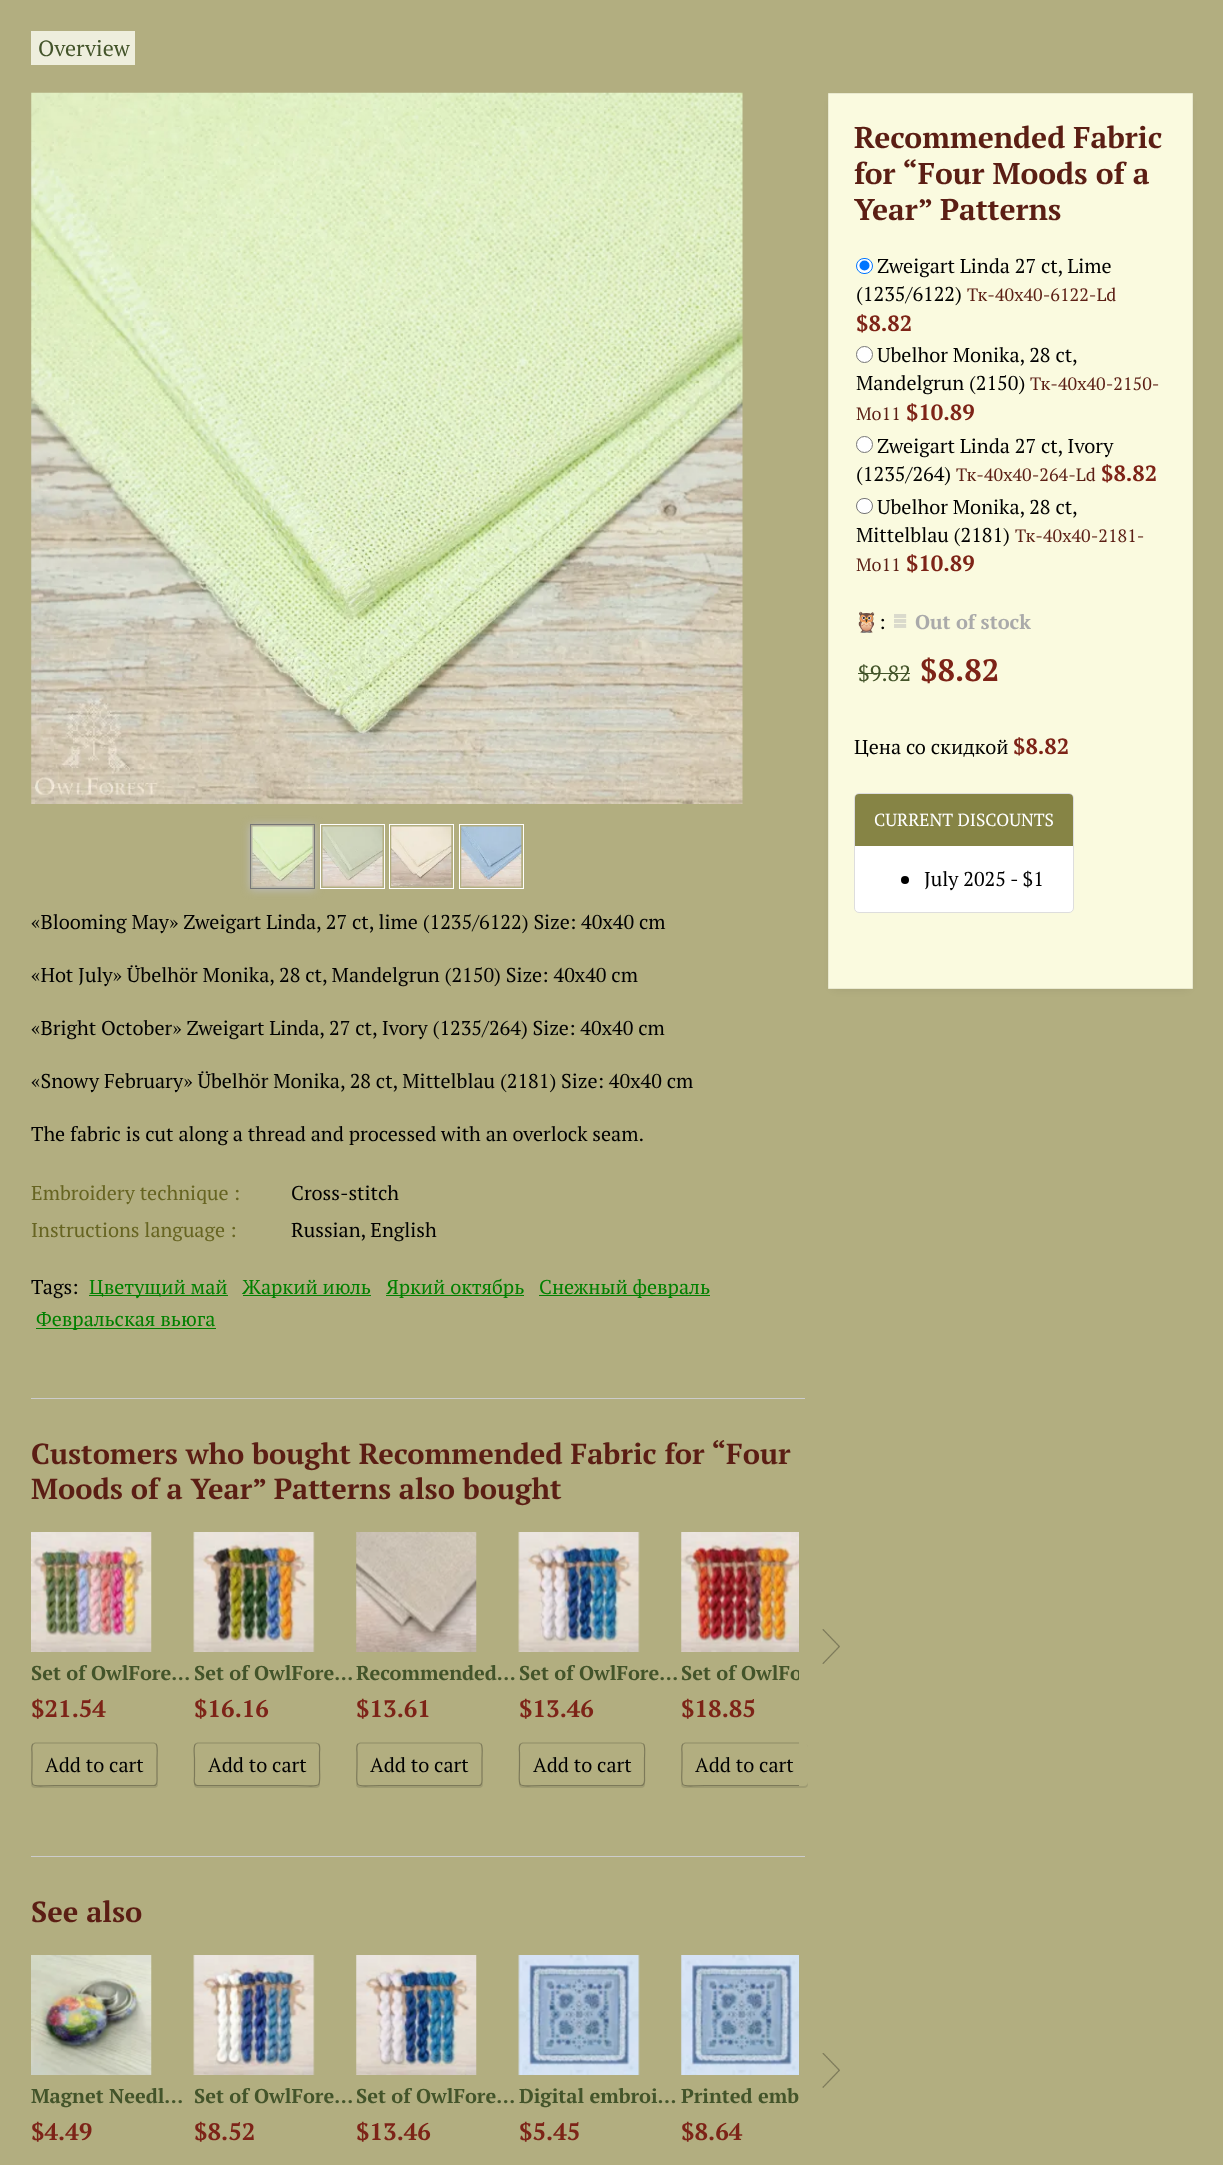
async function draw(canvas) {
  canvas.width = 1223
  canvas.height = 2165
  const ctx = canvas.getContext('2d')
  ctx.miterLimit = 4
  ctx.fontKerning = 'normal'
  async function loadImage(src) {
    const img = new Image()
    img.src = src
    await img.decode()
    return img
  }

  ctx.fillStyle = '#b2ae80'
  ctx.fillRect(0, 0, 1223, 2165)
  ctx.fillStyle = '#eed'
  ctx.fillRect(31, 31, 104, 34)
  ctx.font = '22px PT Serif'
  ctx.fillStyle = '#43542a'
  ctx.fillText('Overview', 38, 56)
  ctx.fillStyle = '#0000001a'
  ctx.filter = 'blur(5px)'
  ctx.beginPath()
  ctx.rect(833, 101, 355, 887)
  ctx.fill()
  ctx.filter = 'none'
  ctx.fillStyle = '#fafadf'
  ctx.beginPath()
  ctx.rect(828.5, 93.5, 364, 895)
  ctx.fill()
  ctx.strokeStyle = '#e9e9cf'
  ctx.stroke()
  ctx.font = 'bold 30px PT Serif'
  ctx.fillStyle = '#5b1e14'
  ctx.fillText('Recommended Fabric', 854, 148)
  ctx.fillText('for “Four Moods of a', 854, 184)
  ctx.fillText('Year” Patterns', 854, 220)
  ctx.fillStyle = '#fff'
  ctx.beginPath()
  ctx.roundRect(856.5, 258.5, 16, 15, 7.5)
  ctx.fill()
  ctx.strokeStyle = '#0075ff'
  ctx.stroke()
  ctx.fillStyle = '#0075ff'
  ctx.beginPath()
  ctx.arc(864.5, 265.5, 5, 0, 2 * Math.PI)
  ctx.fill()
  ctx.font = '20px PT Serif'
  ctx.fillStyle = '#000'
  ctx.fillText('Zweigart Linda 27 ct, Lime', 877, 273)
  ctx.fillText('(1235/6122)', 856, 301)
  ctx.font = '18px PT Serif'
  ctx.fillStyle = '#5b1e14'
  ctx.fillText('Тк-40x40-6122-Ld', 967, 301)
  ctx.font = 'bold 22px PT Serif'
  ctx.fillStyle = '#7d2317'
  ctx.fillText('$8.82', 856, 331)
  ctx.fillStyle = '#fff'
  ctx.beginPath()
  ctx.arc(864.5, 354.5, 8, 0, 2 * Math.PI)
  ctx.fill()
  ctx.strokeStyle = '#767676'
  ctx.stroke()
  ctx.font = '20px PT Serif'
  ctx.fillStyle = '#000'
  ctx.fillText('Ubelhor Monika, 28 ct,', 877, 362)
  ctx.fillText('Mandelgrun (2150)', 856, 390)
  ctx.font = '18px PT Serif'
  ctx.fillStyle = '#5b1e14'
  ctx.fillText('Тк-40x40-2150-', 1030, 390)
  ctx.fillText('Mo11', 856, 420)
  ctx.font = 'bold 22px PT Serif'
  ctx.fillStyle = '#7d2317'
  ctx.fillText('$10.89', 906, 420)
  ctx.fillStyle = '#fff'
  ctx.beginPath()
  ctx.arc(864.5, 444.5, 8, 0, 2 * Math.PI)
  ctx.fill()
  ctx.stroke()
  ctx.font = '20px PT Serif'
  ctx.fillStyle = '#000'
  ctx.fillText('Zweigart Linda 27 ct, Ivory', 877, 453)
  ctx.fillText('(1235/264)', 856, 481)
  ctx.font = '18px PT Serif'
  ctx.fillStyle = '#5b1e14'
  ctx.fillText('Тк-40x40-264-Ld', 956, 481)
  ctx.font = 'bold 22px PT Serif'
  ctx.fillStyle = '#7d2317'
  ctx.fillText('$8.82', 1101, 481)
  ctx.fillStyle = '#fff'
  ctx.beginPath()
  ctx.roundRect(856.5, 498.5, 16, 15, 7.5)
  ctx.fill()
  ctx.stroke()
  ctx.font = '20px PT Serif'
  ctx.fillStyle = '#000'
  ctx.fillText('Ubelhor Monika, 28 ct,', 877, 514)
  ctx.fillText('Mittelblau (2181)', 856, 542)
  ctx.font = '18px PT Serif'
  ctx.fillStyle = '#5b1e14'
  ctx.fillText('Тк-40x40-2181-', 1015, 542)
  ctx.fillText('Mo11', 856, 571)
  ctx.font = 'bold 22px PT Serif'
  ctx.fillStyle = '#7d2317'
  ctx.fillText('$10.89', 906, 571)
  ctx.font = '20px Noto Color Emoji'
  ctx.fillStyle = '#000'
  ctx.fillText('🦉', 854, 629)
  ctx.font = '20px PT Serif'
  ctx.fillText(':', 879, 629)
  ctx.drawImage(await loadImage('image0.png'), 894, 614, 13, 14)
  ctx.font = 'bold 20px PT Serif'
  ctx.fillStyle = '#aaa'
  ctx.fillText('Out of stock', 915, 629)
  ctx.font = '22px PT Serif'
  ctx.fillStyle = '#43542a'
  ctx.fillText('$9.82', 858, 681)
  ctx.fillRect(858, 673, 52, 1)
  ctx.font = 'bold 31px PT Serif'
  ctx.fillStyle = '#7d2317'
  ctx.fillText('$8.82', 920, 681)
  ctx.font = '20px PT Serif'
  ctx.fillStyle = '#000'
  ctx.fillText('Цена со скидкой', 854, 754)
  ctx.font = 'bold 22px PT Serif'
  ctx.fillStyle = '#7d2317'
  ctx.fillText('$8.82', 1013, 754)
  ctx.fillStyle = '#fff'
  ctx.beginPath()
  ctx.roundRect(854.5, 793.5, 219, 119, 4.5)
  ctx.fill()
  ctx.strokeStyle = '#ddd'
  ctx.stroke()
  ctx.fillStyle = '#868445'
  ctx.beginPath()
  ctx.roundRect(855, 794, 218, 52, [4, 4, 0, 0])
  ctx.fill()
  ctx.font = '17.5px PT Serif'
  ctx.fillStyle = '#fff'
  ctx.fillText('CURRENT DISCOUNTS', 874, 826)
  ctx.fillStyle = '#000'
  ctx.beginPath()
  ctx.arc(905, 880, 4, 0, 2 * Math.PI)
  ctx.fill()
  ctx.font = '20px PT Serif'
  ctx.fillText('July 2025 - $1', 924, 886)
  ctx.drawImage(await loadImage('image1.png'), 31, 92, 712, 712)
  ctx.fillStyle = '#bbb'
  ctx.filter = 'blur(4px)'
  ctx.beginPath()
  ctx.rect(250, 825, 65, 65)
  ctx.fill()
  ctx.filter = 'none'
  ctx.strokeStyle = '#777'
  ctx.strokeRect(250.5, 824.5, 64, 64)
  ctx.drawImage(await loadImage('image2.png'), 252, 826, 61, 61)
  ctx.strokeStyle = '#fff'
  ctx.strokeRect(320.5, 824.5, 64, 64)
  ctx.drawImage(await loadImage('image3.png'), 322, 826, 61, 61)
  ctx.strokeRect(389.5, 824.5, 64, 64)
  ctx.drawImage(await loadImage('image4.png'), 391, 826, 61, 61)
  ctx.strokeRect(459.5, 824.5, 64, 64)
  ctx.drawImage(await loadImage('image5.png'), 461, 826, 61, 61)
  ctx.fillStyle = '#000'
  ctx.fillText('«Blooming May» Zweigart Linda, 27 ct, lime (1235/6122) Size: 40х40 cm', 31, 929)
  ctx.fillText('«Hot July» Übelhör Monika, 28 ct, Mandelgrun (2150) Size: 40х40 cm', 31, 982)
  ctx.fillText('«Bright October» Zweigart Linda, 27 ct, Ivory (1235/264) Size: 40х40 cm', 31, 1035)
  ctx.fillText('«Snowy February» Übelhör Monika, 28 ct, Mittelblau (2181) Size: 40х40 cm', 31, 1088)
  ctx.fillText('The fabric is cut along a thread and processed with an overlock seam.', 31, 1141)
  ctx.fillStyle = '#666421'
  ctx.fillText('Embroidery technique :', 31, 1200)
  ctx.fillStyle = '#000'
  ctx.fillText('Cross-stitch', 291, 1200)
  ctx.fillStyle = '#666421'
  ctx.fillText('Instructions language :', 31, 1237)
  ctx.fillStyle = '#000'
  ctx.fillText('Russian, English', 291, 1237)
  ctx.fillText('Tags:', 31, 1294)
  ctx.fillStyle = '#008000'
  ctx.fillRect(89, 1295, 139, 1)
  ctx.fillText('Цветущий май', 89, 1294)
  ctx.fillRect(243, 1295, 128, 1)
  ctx.fillText('Жаркий июль', 242, 1294)
  ctx.fillRect(386, 1295, 138, 1)
  ctx.fillText('Яркий октябрь', 386, 1294)
  ctx.fillRect(539, 1295, 171, 1)
  ctx.fillText('Снежный февраль', 539, 1294)
  ctx.fillRect(36, 1328, 180, 1)
  ctx.fillText('Февральская вьюга', 36, 1326)
  ctx.fillStyle = '#ccc'
  ctx.fillRect(31, 1398, 774, 1)
  ctx.font = 'bold 29px PT Serif'
  ctx.fillStyle = '#5b1e14'
  ctx.fillText('Customers who bought Recommended Fabric for “Four', 31, 1464)
  ctx.fillText('Moods of a Year” Patterns also bought', 31, 1499)
  ctx.drawImage(await loadImage('image6.png'), 822, 1629, 18, 35)
  ctx.drawImage(await loadImage('image7.png'), 31, 1532, 121, 120)
  ctx.font = 'bold 20px PT Serif'
  ctx.fillStyle = '#43542a'
  ctx.fillText('Set of OwlFore…', 31, 1680)
  ctx.font = 'bold 24px PT Serif'
  ctx.fillStyle = '#7d2317'
  ctx.fillText('$21.54', 31, 1717)
  ctx.save()
  ctx.beginPath()
  ctx.moveTo(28, 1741)
  ctx.lineTo(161, 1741)
  ctx.lineTo(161, 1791)
  ctx.lineTo(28, 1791)
  ctx.closePath()
  ctx.moveTo(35, 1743)
  ctx.lineTo(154, 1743)
  ctx.bezierCurveTo(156, 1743, 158, 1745, 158, 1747)
  ctx.lineTo(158, 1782)
  ctx.bezierCurveTo(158, 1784, 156, 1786, 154, 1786)
  ctx.lineTo(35, 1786)
  ctx.bezierCurveTo(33, 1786, 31, 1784, 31, 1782)
  ctx.lineTo(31, 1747)
  ctx.bezierCurveTo(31, 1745, 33, 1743, 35, 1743)
  ctx.closePath()
  ctx.clip('evenodd')
  ctx.fillStyle = '#0000001a'
  ctx.filter = 'blur(0.5px)'
  ctx.beginPath()
  ctx.roundRect(31, 1744, 127, 44, 4)
  ctx.fill()
  ctx.filter = 'none'
  ctx.restore()
  ctx.beginPath()
  ctx.moveTo(33, 1744)
  ctx.lineTo(35, 1743)
  ctx.lineTo(154, 1743)
  ctx.lineTo(156, 1744)
  ctx.strokeStyle = '#8e8b66'
  ctx.lineWidth = 1.2
  ctx.stroke()
  ctx.beginPath()
  ctx.moveTo(156, 1744)
  ctx.bezierCurveTo(158, 1746, 157, 1756, 157, 1758.5)
  ctx.lineTo(157, 1776.5)
  ctx.bezierCurveTo(157, 1778.5, 158, 1785.5, 154, 1785.5)
  ctx.lineTo(55, 1785.5)
  ctx.bezierCurveTo(27, 1785.5, 32, 1790.5, 32, 1764.5)
  ctx.lineTo(32, 1752.5)
  ctx.bezierCurveTo(32, 1751, 31, 1746, 33, 1744)
  ctx.strokeStyle = '#0000004d'
  ctx.stroke()
  ctx.font = '20px PT Serif'
  ctx.fillStyle = '#000'
  ctx.fillText('Add to cart', 45, 1772)
  ctx.drawImage(await loadImage('image8.png'), 193, 1532, 122, 120)
  ctx.font = 'bold 20px PT Serif'
  ctx.fillStyle = '#43542a'
  ctx.fillText('Set of OwlFore…', 194, 1680)
  ctx.font = 'bold 24px PT Serif'
  ctx.fillStyle = '#7d2317'
  ctx.fillText('$16.16', 194, 1717)
  ctx.save()
  ctx.beginPath()
  ctx.moveTo(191, 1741)
  ctx.lineTo(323, 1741)
  ctx.lineTo(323, 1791)
  ctx.lineTo(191, 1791)
  ctx.closePath()
  ctx.moveTo(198, 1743)
  ctx.lineTo(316, 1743)
  ctx.bezierCurveTo(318, 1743, 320, 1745, 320, 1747)
  ctx.lineTo(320, 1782)
  ctx.bezierCurveTo(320, 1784, 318, 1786, 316, 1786)
  ctx.lineTo(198, 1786)
  ctx.bezierCurveTo(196, 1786, 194, 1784, 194, 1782)
  ctx.lineTo(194, 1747)
  ctx.bezierCurveTo(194, 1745, 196, 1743, 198, 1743)
  ctx.closePath()
  ctx.clip('evenodd')
  ctx.fillStyle = '#0000001a'
  ctx.filter = 'blur(0.5px)'
  ctx.beginPath()
  ctx.roundRect(194, 1744, 126, 44, 4)
  ctx.fill()
  ctx.filter = 'none'
  ctx.restore()
  ctx.beginPath()
  ctx.moveTo(195.5, 1744)
  ctx.lineTo(197.5, 1743)
  ctx.lineTo(316, 1743)
  ctx.lineTo(318.5, 1744)
  ctx.strokeStyle = '#8e8b66'
  ctx.stroke()
  ctx.beginPath()
  ctx.moveTo(318.5, 1744)
  ctx.bezierCurveTo(320.5, 1746, 319.5, 1751, 319.5, 1752.5)
  ctx.lineTo(319.5, 1764.5)
  ctx.bezierCurveTo(319.5, 1790.5, 324, 1785.5, 296.5, 1785.5)
  ctx.lineTo(197.5, 1785.5)
  ctx.bezierCurveTo(193, 1785.5, 194.5, 1778.5, 194.5, 1776.5)
  ctx.lineTo(194.5, 1758.5)
  ctx.bezierCurveTo(194.5, 1756, 193, 1746, 195.5, 1744)
  ctx.strokeStyle = '#0000004d'
  ctx.stroke()
  ctx.font = '20px PT Serif'
  ctx.fillStyle = '#000'
  ctx.fillText('Add to cart', 208, 1772)
  ctx.drawImage(await loadImage('image9.png'), 356, 1532, 121, 120)
  ctx.font = 'bold 20px PT Serif'
  ctx.fillStyle = '#43542a'
  ctx.fillText('Recommended…', 356, 1680)
  ctx.font = 'bold 24px PT Serif'
  ctx.fillStyle = '#7d2317'
  ctx.fillText('$13.61', 356, 1717)
  ctx.save()
  ctx.beginPath()
  ctx.moveTo(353, 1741)
  ctx.lineTo(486, 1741)
  ctx.lineTo(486, 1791)
  ctx.lineTo(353, 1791)
  ctx.closePath()
  ctx.moveTo(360, 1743)
  ctx.lineTo(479, 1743)
  ctx.bezierCurveTo(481, 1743, 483, 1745, 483, 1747)
  ctx.lineTo(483, 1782)
  ctx.bezierCurveTo(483, 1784, 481, 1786, 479, 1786)
  ctx.lineTo(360, 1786)
  ctx.bezierCurveTo(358, 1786, 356, 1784, 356, 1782)
  ctx.lineTo(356, 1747)
  ctx.bezierCurveTo(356, 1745, 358, 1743, 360, 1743)
  ctx.closePath()
  ctx.clip('evenodd')
  ctx.fillStyle = '#0000001a'
  ctx.filter = 'blur(0.5px)'
  ctx.beginPath()
  ctx.roundRect(356, 1744, 127, 44, 4)
  ctx.fill()
  ctx.filter = 'none'
  ctx.restore()
  ctx.beginPath()
  ctx.moveTo(358, 1744)
  ctx.lineTo(360, 1743)
  ctx.lineTo(479, 1743)
  ctx.lineTo(481, 1744)
  ctx.strokeStyle = '#8e8b66'
  ctx.stroke()
  ctx.beginPath()
  ctx.moveTo(481, 1744)
  ctx.bezierCurveTo(483, 1746, 482, 1756, 482, 1758.5)
  ctx.lineTo(482, 1776.5)
  ctx.bezierCurveTo(482, 1778.5, 483, 1785.5, 479, 1785.5)
  ctx.lineTo(380, 1785.5)
  ctx.bezierCurveTo(352, 1785.5, 357, 1790.5, 357, 1764.5)
  ctx.lineTo(357, 1752.5)
  ctx.bezierCurveTo(357, 1751, 356, 1746, 358, 1744)
  ctx.strokeStyle = '#0000004d'
  ctx.stroke()
  ctx.font = '20px PT Serif'
  ctx.fillStyle = '#000'
  ctx.fillText('Add to cart', 370, 1772)
  ctx.drawImage(await loadImage('image10.png'), 518, 1532, 122, 120)
  ctx.font = 'bold 20px PT Serif'
  ctx.fillStyle = '#43542a'
  ctx.fillText('Set of OwlFore…', 519, 1680)
  ctx.font = 'bold 24px PT Serif'
  ctx.fillStyle = '#7d2317'
  ctx.fillText('$13.46', 519, 1717)
  ctx.save()
  ctx.beginPath()
  ctx.moveTo(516, 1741)
  ctx.lineTo(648, 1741)
  ctx.lineTo(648, 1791)
  ctx.lineTo(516, 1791)
  ctx.closePath()
  ctx.moveTo(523, 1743)
  ctx.lineTo(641, 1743)
  ctx.bezierCurveTo(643, 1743, 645, 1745, 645, 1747)
  ctx.lineTo(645, 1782)
  ctx.bezierCurveTo(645, 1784, 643, 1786, 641, 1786)
  ctx.lineTo(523, 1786)
  ctx.bezierCurveTo(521, 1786, 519, 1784, 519, 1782)
  ctx.lineTo(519, 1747)
  ctx.bezierCurveTo(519, 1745, 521, 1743, 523, 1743)
  ctx.closePath()
  ctx.clip('evenodd')
  ctx.fillStyle = '#0000001a'
  ctx.filter = 'blur(0.5px)'
  ctx.beginPath()
  ctx.roundRect(519, 1744, 126, 44, 4)
  ctx.fill()
  ctx.filter = 'none'
  ctx.restore()
  ctx.beginPath()
  ctx.moveTo(520.5, 1744)
  ctx.lineTo(522.5, 1743)
  ctx.lineTo(641, 1743)
  ctx.lineTo(643.5, 1744)
  ctx.strokeStyle = '#8e8b66'
  ctx.stroke()
  ctx.beginPath()
  ctx.moveTo(643.5, 1744)
  ctx.bezierCurveTo(645.5, 1746, 644.5, 1756, 644.5, 1758.5)
  ctx.lineTo(644.5, 1776.5)
  ctx.bezierCurveTo(644.5, 1778.5, 645.5, 1785.5, 641, 1785.5)
  ctx.lineTo(542.5, 1785.5)
  ctx.bezierCurveTo(514.5, 1785.5, 519.5, 1790.5, 519.5, 1764.5)
  ctx.lineTo(519.5, 1752.5)
  ctx.bezierCurveTo(519.5, 1751, 518.5, 1746, 520.5, 1744)
  ctx.strokeStyle = '#0000004d'
  ctx.stroke()
  ctx.font = '20px PT Serif'
  ctx.fillStyle = '#000'
  ctx.fillText('Add to cart', 533, 1772)
  ctx.drawImage(await loadImage('image11.png'), 681, 1532, 118, 120)
  ctx.save()
  ctx.beginPath()
  ctx.rect(681, 1661, 118, 24)
  ctx.clip()
  ctx.font = 'bold 20px PT Serif'
  ctx.fillStyle = '#43542a'
  ctx.fillText('Set of OwlFo', 681, 1680)
  ctx.restore()
  ctx.font = 'bold 24px PT Serif'
  ctx.fillStyle = '#7d2317'
  ctx.fillText('$18.85', 681, 1717)
  ctx.save()
  ctx.beginPath()
  ctx.moveTo(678, 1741)
  ctx.lineTo(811, 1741)
  ctx.lineTo(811, 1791)
  ctx.lineTo(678, 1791)
  ctx.closePath()
  ctx.moveTo(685, 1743)
  ctx.lineTo(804, 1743)
  ctx.bezierCurveTo(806, 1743, 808, 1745, 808, 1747)
  ctx.lineTo(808, 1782)
  ctx.bezierCurveTo(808, 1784, 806, 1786, 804, 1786)
  ctx.lineTo(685, 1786)
  ctx.bezierCurveTo(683, 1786, 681, 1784, 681, 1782)
  ctx.lineTo(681, 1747)
  ctx.bezierCurveTo(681, 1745, 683, 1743, 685, 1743)
  ctx.closePath()
  ctx.clip('evenodd')
  ctx.fillStyle = '#0000001a'
  ctx.filter = 'blur(0.5px)'
  ctx.beginPath()
  ctx.roundRect(681, 1744, 127, 44, 4)
  ctx.fill()
  ctx.filter = 'none'
  ctx.restore()
  ctx.save()
  ctx.beginPath()
  ctx.rect(31, 1531, 768, 263)
  ctx.clip()
  ctx.beginPath()
  ctx.moveTo(683, 1744)
  ctx.lineTo(685, 1743)
  ctx.lineTo(804, 1743)
  ctx.lineTo(806, 1744)
  ctx.strokeStyle = '#8e8b66'
  ctx.stroke()
  ctx.beginPath()
  ctx.moveTo(806, 1744)
  ctx.bezierCurveTo(808, 1746, 807, 1756, 807, 1758.5)
  ctx.lineTo(807, 1776.5)
  ctx.bezierCurveTo(807, 1778.5, 808, 1785.5, 804, 1785.5)
  ctx.lineTo(705, 1785.5)
  ctx.bezierCurveTo(677, 1785.5, 682, 1790.5, 682, 1764.5)
  ctx.lineTo(682, 1752.5)
  ctx.bezierCurveTo(682, 1751, 681, 1746, 683, 1744)
  ctx.strokeStyle = '#0000004d'
  ctx.stroke()
  ctx.restore()
  ctx.font = '20px PT Serif'
  ctx.fillStyle = '#000'
  ctx.fillText('Add to cart', 695, 1772)
  ctx.fillStyle = '#ccc'
  ctx.fillRect(31, 1856, 774, 1)
  ctx.font = 'bold 29px PT Serif'
  ctx.fillStyle = '#5b1e14'
  ctx.fillText('See also', 31, 1922)
  ctx.drawImage(await loadImage('image12.png'), 822, 2053, 18, 35)
  ctx.drawImage(await loadImage('image13.png'), 31, 1955, 121, 120)
  ctx.font = 'bold 20px PT Serif'
  ctx.fillStyle = '#43542a'
  ctx.fillText('Magnet Needl…', 31, 2103)
  ctx.font = 'bold 24px PT Serif'
  ctx.fillStyle = '#7d2317'
  ctx.fillText('$4.49', 31, 2140)
  ctx.drawImage(await loadImage('image14.png'), 193, 1955, 122, 120)
  ctx.font = 'bold 20px PT Serif'
  ctx.fillStyle = '#43542a'
  ctx.fillText('Set of OwlFore…', 194, 2103)
  ctx.font = 'bold 24px PT Serif'
  ctx.fillStyle = '#7d2317'
  ctx.fillText('$8.52', 194, 2140)
  ctx.drawImage(await loadImage('image15.png'), 356, 1955, 121, 120)
  ctx.font = 'bold 20px PT Serif'
  ctx.fillStyle = '#43542a'
  ctx.fillText('Set of OwlFore…', 356, 2103)
  ctx.font = 'bold 24px PT Serif'
  ctx.fillStyle = '#7d2317'
  ctx.fillText('$13.46', 356, 2140)
  ctx.drawImage(await loadImage('image16.png'), 518, 1955, 122, 120)
  ctx.font = 'bold 20px PT Serif'
  ctx.fillStyle = '#43542a'
  ctx.fillText('Digital embroi…', 519, 2103)
  ctx.font = 'bold 24px PT Serif'
  ctx.fillStyle = '#7d2317'
  ctx.fillText('$5.45', 519, 2140)
  ctx.drawImage(await loadImage('image17.png'), 681, 1955, 118, 120)
  ctx.font = 'bold 20px PT Serif'
  ctx.fillStyle = '#43542a'
  ctx.fillText('Printed emb', 681, 2103)
  ctx.font = 'bold 24px PT Serif'
  ctx.fillStyle = '#7d2317'
  ctx.fillText('$8.64', 681, 2140)
}

draw(document.querySelector('canvas'))
